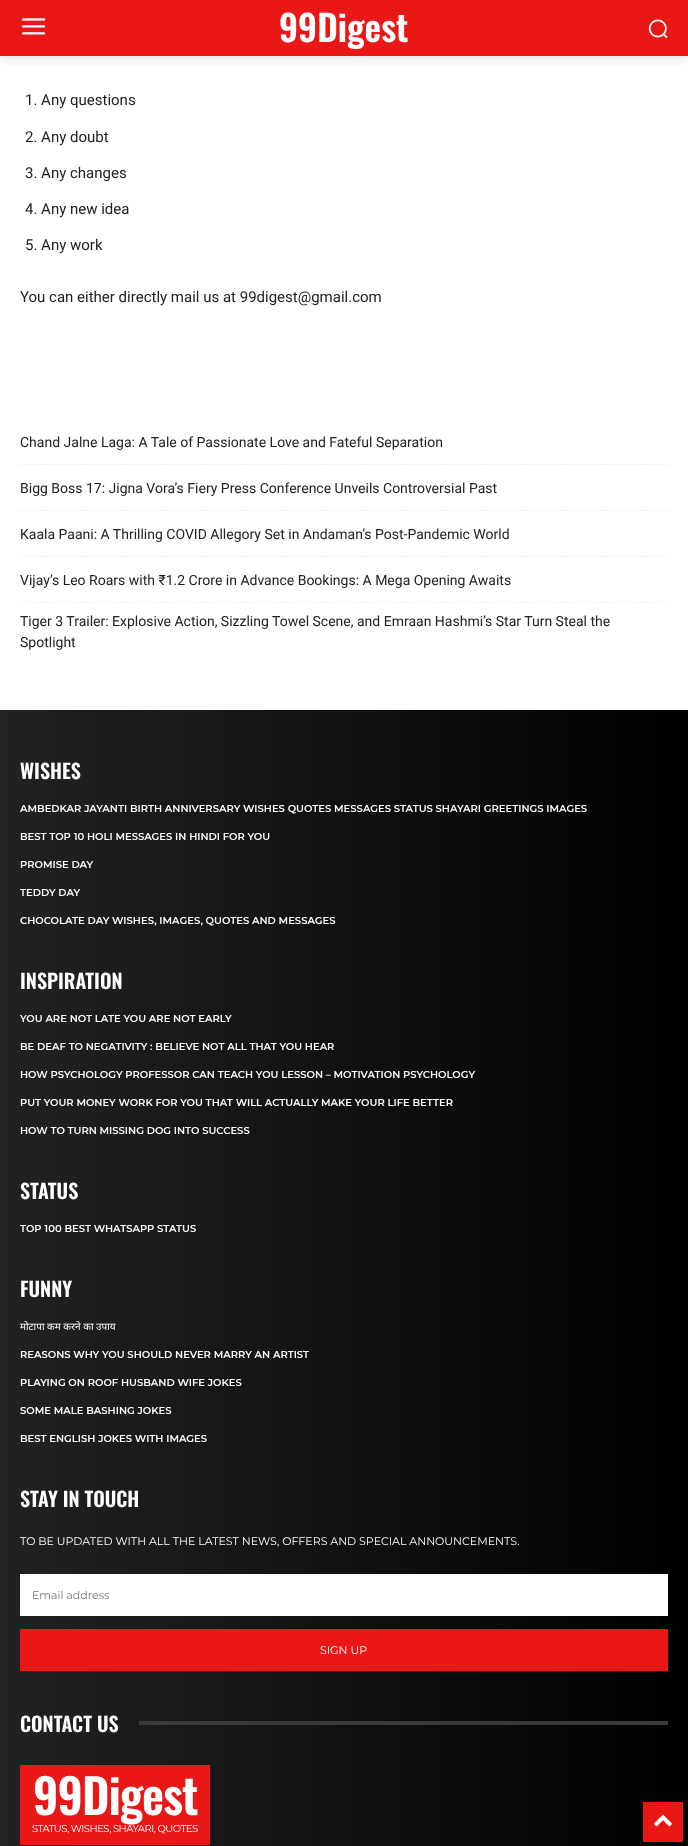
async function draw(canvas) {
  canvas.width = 688
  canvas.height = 1846
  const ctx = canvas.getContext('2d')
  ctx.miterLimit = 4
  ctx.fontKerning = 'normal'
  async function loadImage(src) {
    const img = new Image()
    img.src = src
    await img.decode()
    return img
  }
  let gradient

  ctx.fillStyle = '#fff'
  ctx.fillRect(0, 0, 688, 1846)
  ctx.fillStyle = '#ea1717'
  ctx.fillRect(0, 0, 688, 56)
  ctx.drawImage(await loadImage('image0.png'), 22, 18, 24, 17)
  ctx.drawImage(await loadImage('image1.png'), 648, 19, 20, 20)
  ctx.save()
  ctx.beginPath()
  ctx.rect(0, 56, 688, 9)
  ctx.clip()
  ctx.fillStyle = '#00000014'
  ctx.filter = 'blur(4px)'
  ctx.beginPath()
  ctx.rect(0, 6, 688, 56)
  ctx.fill()
  ctx.filter = 'none'
  ctx.restore()
  ctx.font = '600 36px Oswald'
  ctx.fillStyle = '#fff'
  ctx.fillText('99Digest', 279, 42)
  ctx.font = '15px Roboto'
  ctx.fillStyle = '#222'
  ctx.fillText('1. Any questions', 25, 105)
  ctx.fillText('2. Any doubt', 25, 142)
  ctx.fillText('3. Any changes', 25, 178)
  ctx.fillText('4. Any new idea', 25, 214)
  ctx.fillText('5. Any work', 25, 250)
  ctx.fillText('You can either directly mail us at 99digest@gmail.com', 20, 302)
  ctx.beginPath()
  ctx.moveTo(20, 464.5)
  ctx.lineTo(668, 464.5)
  ctx.strokeStyle = '#f1f1f1'
  ctx.setLineDash([3, 2])
  ctx.stroke()
  ctx.font = '14px Roboto'
  ctx.fillText('Chand Jalne Laga: A Tale of Passionate Love and Fateful Separation', 20, 447)
  ctx.beginPath()
  ctx.moveTo(20, 510.5)
  ctx.lineTo(668, 510.5)
  ctx.stroke()
  ctx.fillText('Bigg Boss 17: Jigna Vora’s Fiery Press Conference Unveils Controversial Past', 20, 493)
  ctx.beginPath()
  ctx.moveTo(20, 556.5)
  ctx.lineTo(668, 556.5)
  ctx.stroke()
  ctx.fillText('Kaala Paani: A Thrilling COVID Allegory Set in Andaman’s Post-Pandemic World', 20, 539)
  ctx.beginPath()
  ctx.moveTo(20, 602.5)
  ctx.lineTo(668, 602.5)
  ctx.stroke()
  ctx.fillText('Vijay’s Leo Roars with ₹1.2 Crore in Advance Bookings: A Mega Opening Awaits', 20, 585)
  ctx.fillText('Tiger 3 Trailer: Explosive Action, Sizzling Towel Scene, and Emraan Hashmi’s Star Turn Steal the', 20, 626)
  ctx.fillText('Spotlight', 20, 647)
  gradient = ctx.createLinearGradient(688, 1368, 0, 1368)
  gradient.addColorStop(0, '#000')
  gradient.addColorStop(1, '#222')
  ctx.fillStyle = gradient
  ctx.fillRect(0, 710, 688, 1136)
  ctx.font = '600 20px Oswald'
  ctx.fillStyle = '#fff'
  ctx.fillText('WISHES', 20, 779)
  ctx.font = '600 10px Montserrat'
  ctx.fillText('AMBEDKAR JAYANTI BIRTH ANNIVERSARY WISHES QUOTES MESSAGES STATUS SHAYARI GREETINGS IMAGES', 20, 812)
  ctx.fillText('BEST TOP 10 HOLI MESSAGES IN HINDI FOR YOU', 20, 840)
  ctx.fillText('PROMISE DAY', 20, 868)
  ctx.fillText('TEDDY DAY', 20, 896)
  ctx.fillText('CHOCOLATE DAY WISHES, IMAGES, QUOTES AND MESSAGES', 20, 924)
  ctx.font = '600 20px Oswald'
  ctx.fillText('INSPIRATION', 20, 989)
  ctx.font = '600 10px Montserrat'
  ctx.fillText('YOU ARE NOT LATE YOU ARE NOT EARLY', 20, 1022)
  ctx.fillText('BE DEAF TO NEGATIVITY : BELIEVE NOT ALL THAT YOU HEAR', 20, 1050)
  ctx.fillText('HOW PSYCHOLOGY PROFESSOR CAN TEACH YOU LESSON – MOTIVATION PSYCHOLOGY', 20, 1078)
  ctx.fillText('PUT YOUR MONEY WORK FOR YOU THAT WILL ACTUALLY MAKE YOUR LIFE BETTER', 20, 1106)
  ctx.fillText('HOW TO TURN MISSING DOG INTO SUCCESS', 20, 1134)
  ctx.font = '600 20px Oswald'
  ctx.fillText('STATUS', 20, 1199)
  ctx.font = '600 10px Montserrat'
  ctx.fillText('TOP 100 BEST WHATSAPP STATUS', 20, 1232)
  ctx.font = '600 20px Oswald'
  ctx.fillText('FUNNY', 20, 1297)
  ctx.font = '10px Noto Sans'
  ctx.fillText('मोटापा कम करने का उपाय', 20, 1330)
  ctx.font = '600 10px Montserrat'
  ctx.fillText('REASONS WHY YOU SHOULD NEVER MARRY AN ARTIST', 20, 1358)
  ctx.fillText('PLAYING ON ROOF HUSBAND WIFE JOKES', 20, 1386)
  ctx.fillText('SOME MALE BASHING JOKES', 20, 1414)
  ctx.fillText('BEST ENGLISH JOKES WITH IMAGES', 20, 1442)
  ctx.font = '600 20px Oswald'
  ctx.fillText('STAY IN TOUCH', 20, 1507)
  ctx.font = '11px Montserrat'
  ctx.fillText('TO BE UPDATED WITH ALL THE LATEST NEWS, OFFERS AND SPECIAL ANNOUNCEMENTS.', 20, 1545)
  ctx.fillRect(20, 1574, 648, 42)
  ctx.fillStyle = '#757575'
  ctx.fillText('Email address', 32, 1599)
  ctx.fillStyle = '#ea1717'
  ctx.fillRect(20, 1629, 648, 42)
  ctx.fillStyle = '#fff'
  ctx.fillText('SIGN UP', 320, 1654)
  ctx.font = '600 20px Oswald'
  ctx.fillText('CONTACT US', 20, 1732)
  ctx.fillStyle = '#3a3a3a'
  ctx.fillRect(139, 1721, 529, 4)
  ctx.fillStyle = '#ea1717'
  ctx.fillRect(20, 1765, 190, 80)
  ctx.letterSpacing = '-1px'
  ctx.font = '600 48px Oswald'
  ctx.fillStyle = '#fff'
  ctx.fillText('99Digest', 33, 1815)
  ctx.letterSpacing = '-0.5px'
  ctx.font = '10px Montserrat'
  ctx.fillText('STATUS, WISHES, SHAYARI, QUOTES', 32, 1832)
  ctx.fillStyle = '#ea1717'
  ctx.fillRect(643, 1802, 40, 40)
  ctx.drawImage(await loadImage('image2.png'), 654, 1814, 18, 13)
}

draw(document.querySelector('canvas'))
